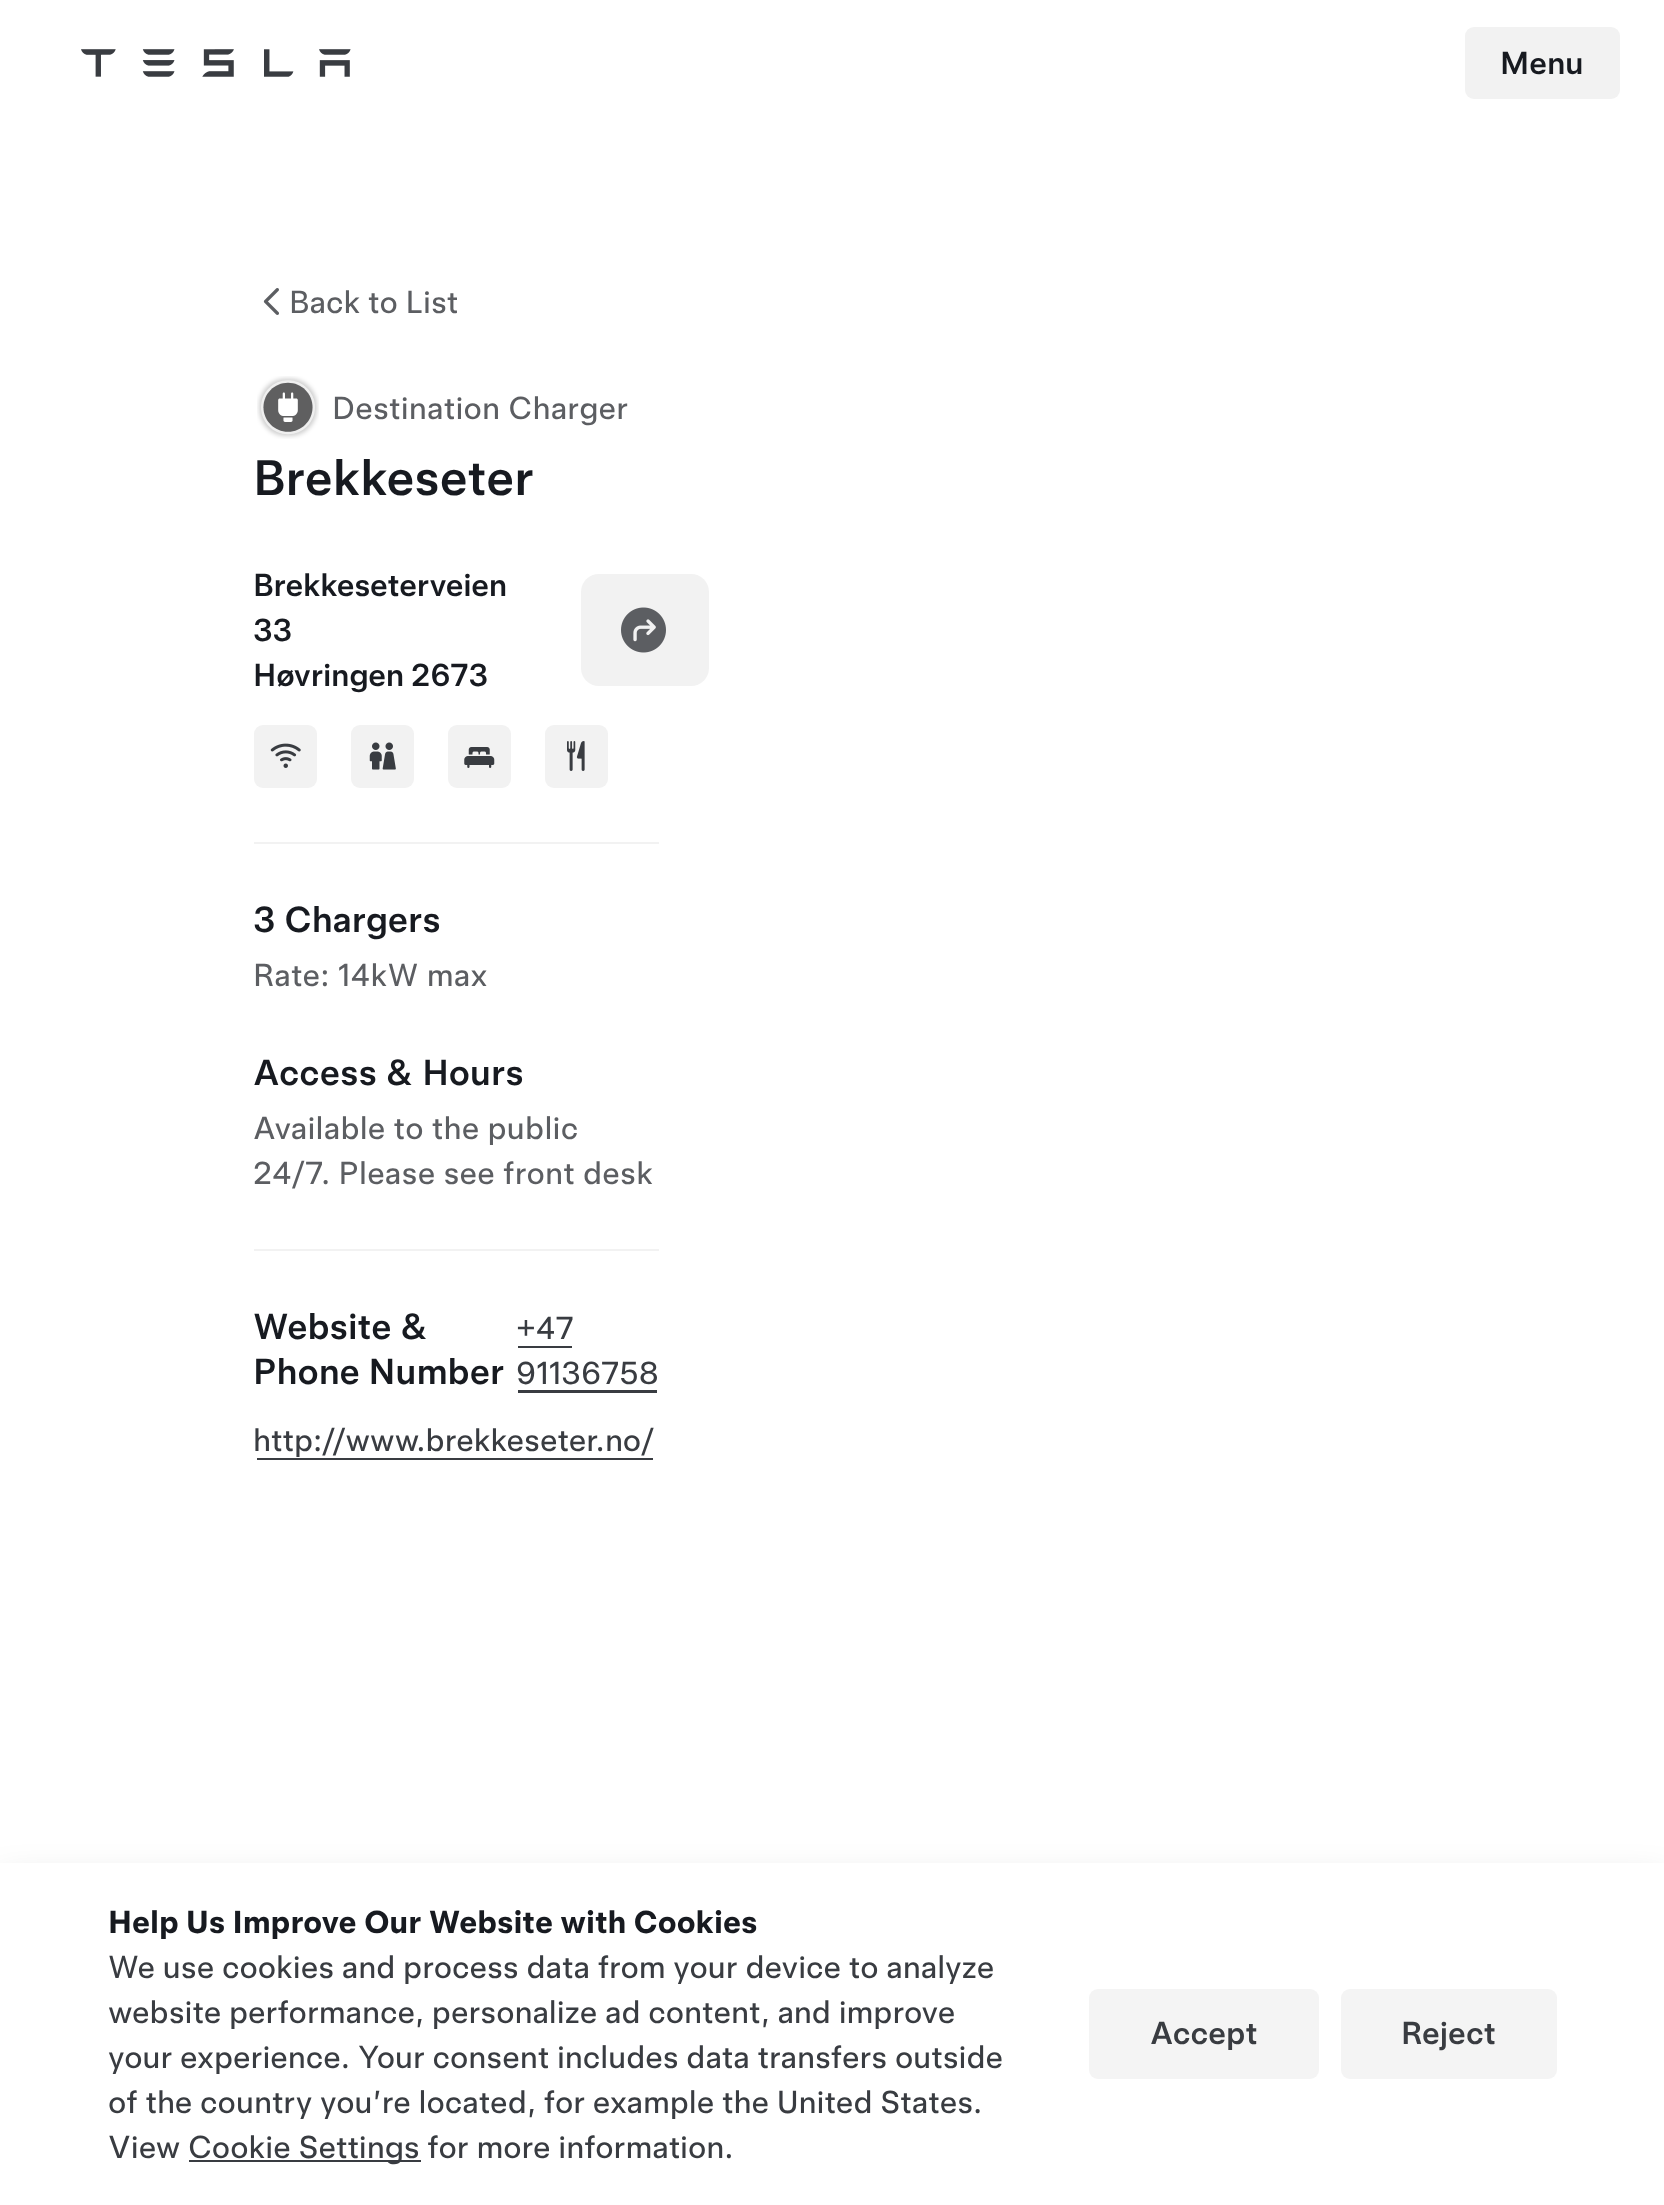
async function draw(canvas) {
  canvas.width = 1664
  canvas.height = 2205
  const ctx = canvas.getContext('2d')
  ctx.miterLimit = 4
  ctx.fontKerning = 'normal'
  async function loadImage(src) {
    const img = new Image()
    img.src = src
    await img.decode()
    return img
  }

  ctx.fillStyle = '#fff'
  ctx.fillRect(0, 0, 1664, 2205)
  ctx.drawImage(await loadImage('image0.png'), 81, 49, 270, 28)
  ctx.fillStyle = '#f2f2f2'
  ctx.beginPath()
  ctx.roundRect(1465, 27, 155, 72, 9)
  ctx.fill()
  ctx.font = '500 31.5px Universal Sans'
  ctx.fillStyle = '#171a20'
  ctx.fillText('Menu', 1500, 74)
  ctx.drawImage(await loadImage('image1.png'), 263, 288, 16, 27)
  ctx.font = '31.5px Universal Sans'
  ctx.fillStyle = '#5c5e62'
  ctx.fillText('Back to List', 289, 313)
  ctx.drawImage(await loadImage('image2.png'), 257, 376, 62, 63)
  ctx.letterSpacing = '0.25px'
  ctx.fillText('Destination Charger', 332, 419)
  ctx.letterSpacing = '0px'
  ctx.font = '500 49.5px Universal Sans'
  ctx.fillStyle = '#171a20'
  ctx.fillText('Brekkeseter', 253, 495)
  ctx.letterSpacing = '-0.25px'
  ctx.font = '500 31.5px Universal Sans'
  ctx.fillText('Brekkeseterveien', 253, 596)
  ctx.fillText('33', 253, 641)
  ctx.fillText('Høvringen 2673', 253, 686)
  ctx.fillStyle = '#f2f2f2'
  ctx.beginPath()
  ctx.roundRect(581, 574, 128, 112, 18)
  ctx.fill()
  ctx.drawImage(await loadImage('image3.png'), 621, 607, 45, 46)
  ctx.beginPath()
  ctx.roundRect(254, 725, 63, 63, 9)
  ctx.fill()
  ctx.drawImage(await loadImage('image4.png'), 270, 743, 31, 25)
  ctx.beginPath()
  ctx.roundRect(351, 725, 63, 63, 9)
  ctx.fill()
  ctx.drawImage(await loadImage('image5.png'), 369, 742, 27, 28)
  ctx.beginPath()
  ctx.roundRect(448, 725, 63, 63, 9)
  ctx.fill()
  ctx.drawImage(await loadImage('image6.png'), 464, 747, 31, 21)
  ctx.beginPath()
  ctx.roundRect(545, 725, 63, 63, 9)
  ctx.fill()
  ctx.drawImage(await loadImage('image7.png'), 567, 741, 18, 30)
  ctx.fillRect(254, 842, 405, 2)
  ctx.letterSpacing = '0px'
  ctx.font = '500 36px Universal Sans'
  ctx.fillStyle = '#171a20'
  ctx.fillText('3 Chargers', 253, 932)
  ctx.letterSpacing = '0.25px'
  ctx.font = '31.5px Universal Sans'
  ctx.fillStyle = '#5c5e62'
  ctx.fillText('Rate: 14kW max', 253, 986)
  ctx.letterSpacing = '0px'
  ctx.font = '500 36px Universal Sans'
  ctx.fillStyle = '#171a20'
  ctx.fillText('Access & Hours', 253, 1085)
  ctx.letterSpacing = '0.25px'
  ctx.font = '31.5px Universal Sans'
  ctx.fillStyle = '#5c5e62'
  ctx.fillText('Available to the public', 253, 1139)
  ctx.fillText('24/7. Please see front desk', 253, 1184)
  ctx.fillStyle = '#f2f2f2'
  ctx.fillRect(254, 1249, 405, 2)
  ctx.letterSpacing = '0px'
  ctx.font = '500 36px Universal Sans'
  ctx.fillStyle = '#171a20'
  ctx.fillText('Website &', 253, 1339)
  ctx.fillText('Phone Number', 253, 1384)
  ctx.font = '31.5px Universal Sans'
  ctx.fillStyle = '#393c41'
  ctx.fillText('+47', 516, 1339)
  ctx.fillRect(518, 1346, 54, 2)
  ctx.fillText('91136758', 516, 1384)
  ctx.fillRect(518, 1390, 139, 3)
  ctx.fillText('http://www.brekkeseter.no/', 253, 1451)
  ctx.fillRect(257, 1458, 396, 2)
  ctx.fillStyle = '#00000029'
  ctx.filter = 'blur(18px)'
  ctx.beginPath()
  ctx.rect(0, 1881, 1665, 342)
  ctx.fill()
  ctx.filter = 'none'
  ctx.fillStyle = '#fff'
  ctx.fillRect(0, 1863, 1664, 342)
  ctx.font = 'bold 31.5px Universal Sans'
  ctx.fillStyle = '#171a20'
  ctx.fillText('Help Us Improve Our Website with Cookies', 108, 1933)
  ctx.font = '31.5px Universal Sans'
  ctx.fillStyle = '#393c41'
  ctx.fillText('We use cookies and process data from your device to analyze', 108, 1978)
  ctx.fillText('website performance, personalize ad content, and improve', 108, 2023)
  ctx.fillText('your experience. Your consent includes data transfers outside', 108, 2068)
  ctx.fillText('of the country you’re located, for example the United States.', 108, 2113)
  ctx.fillText('View', 108, 2158)
  ctx.fillRect(189, 2160, 232, 2)
  ctx.fillText('Cookie Settings for more information.', 188, 2158)
  ctx.fillStyle = '#f4f4f4'
  ctx.beginPath()
  ctx.roundRect(1089, 1989, 230, 90, 9)
  ctx.fill()
  ctx.font = '500 31.5px Universal Sans'
  ctx.fillStyle = '#393c41'
  ctx.fillText('Accept', 1150, 2044)
  ctx.fillStyle = '#f4f4f4'
  ctx.beginPath()
  ctx.roundRect(1341, 1989, 216, 90, 9)
  ctx.fill()
  ctx.fillStyle = '#393c41'
  ctx.fillText('Reject', 1401, 2044)
}

draw(document.querySelector('canvas'))
